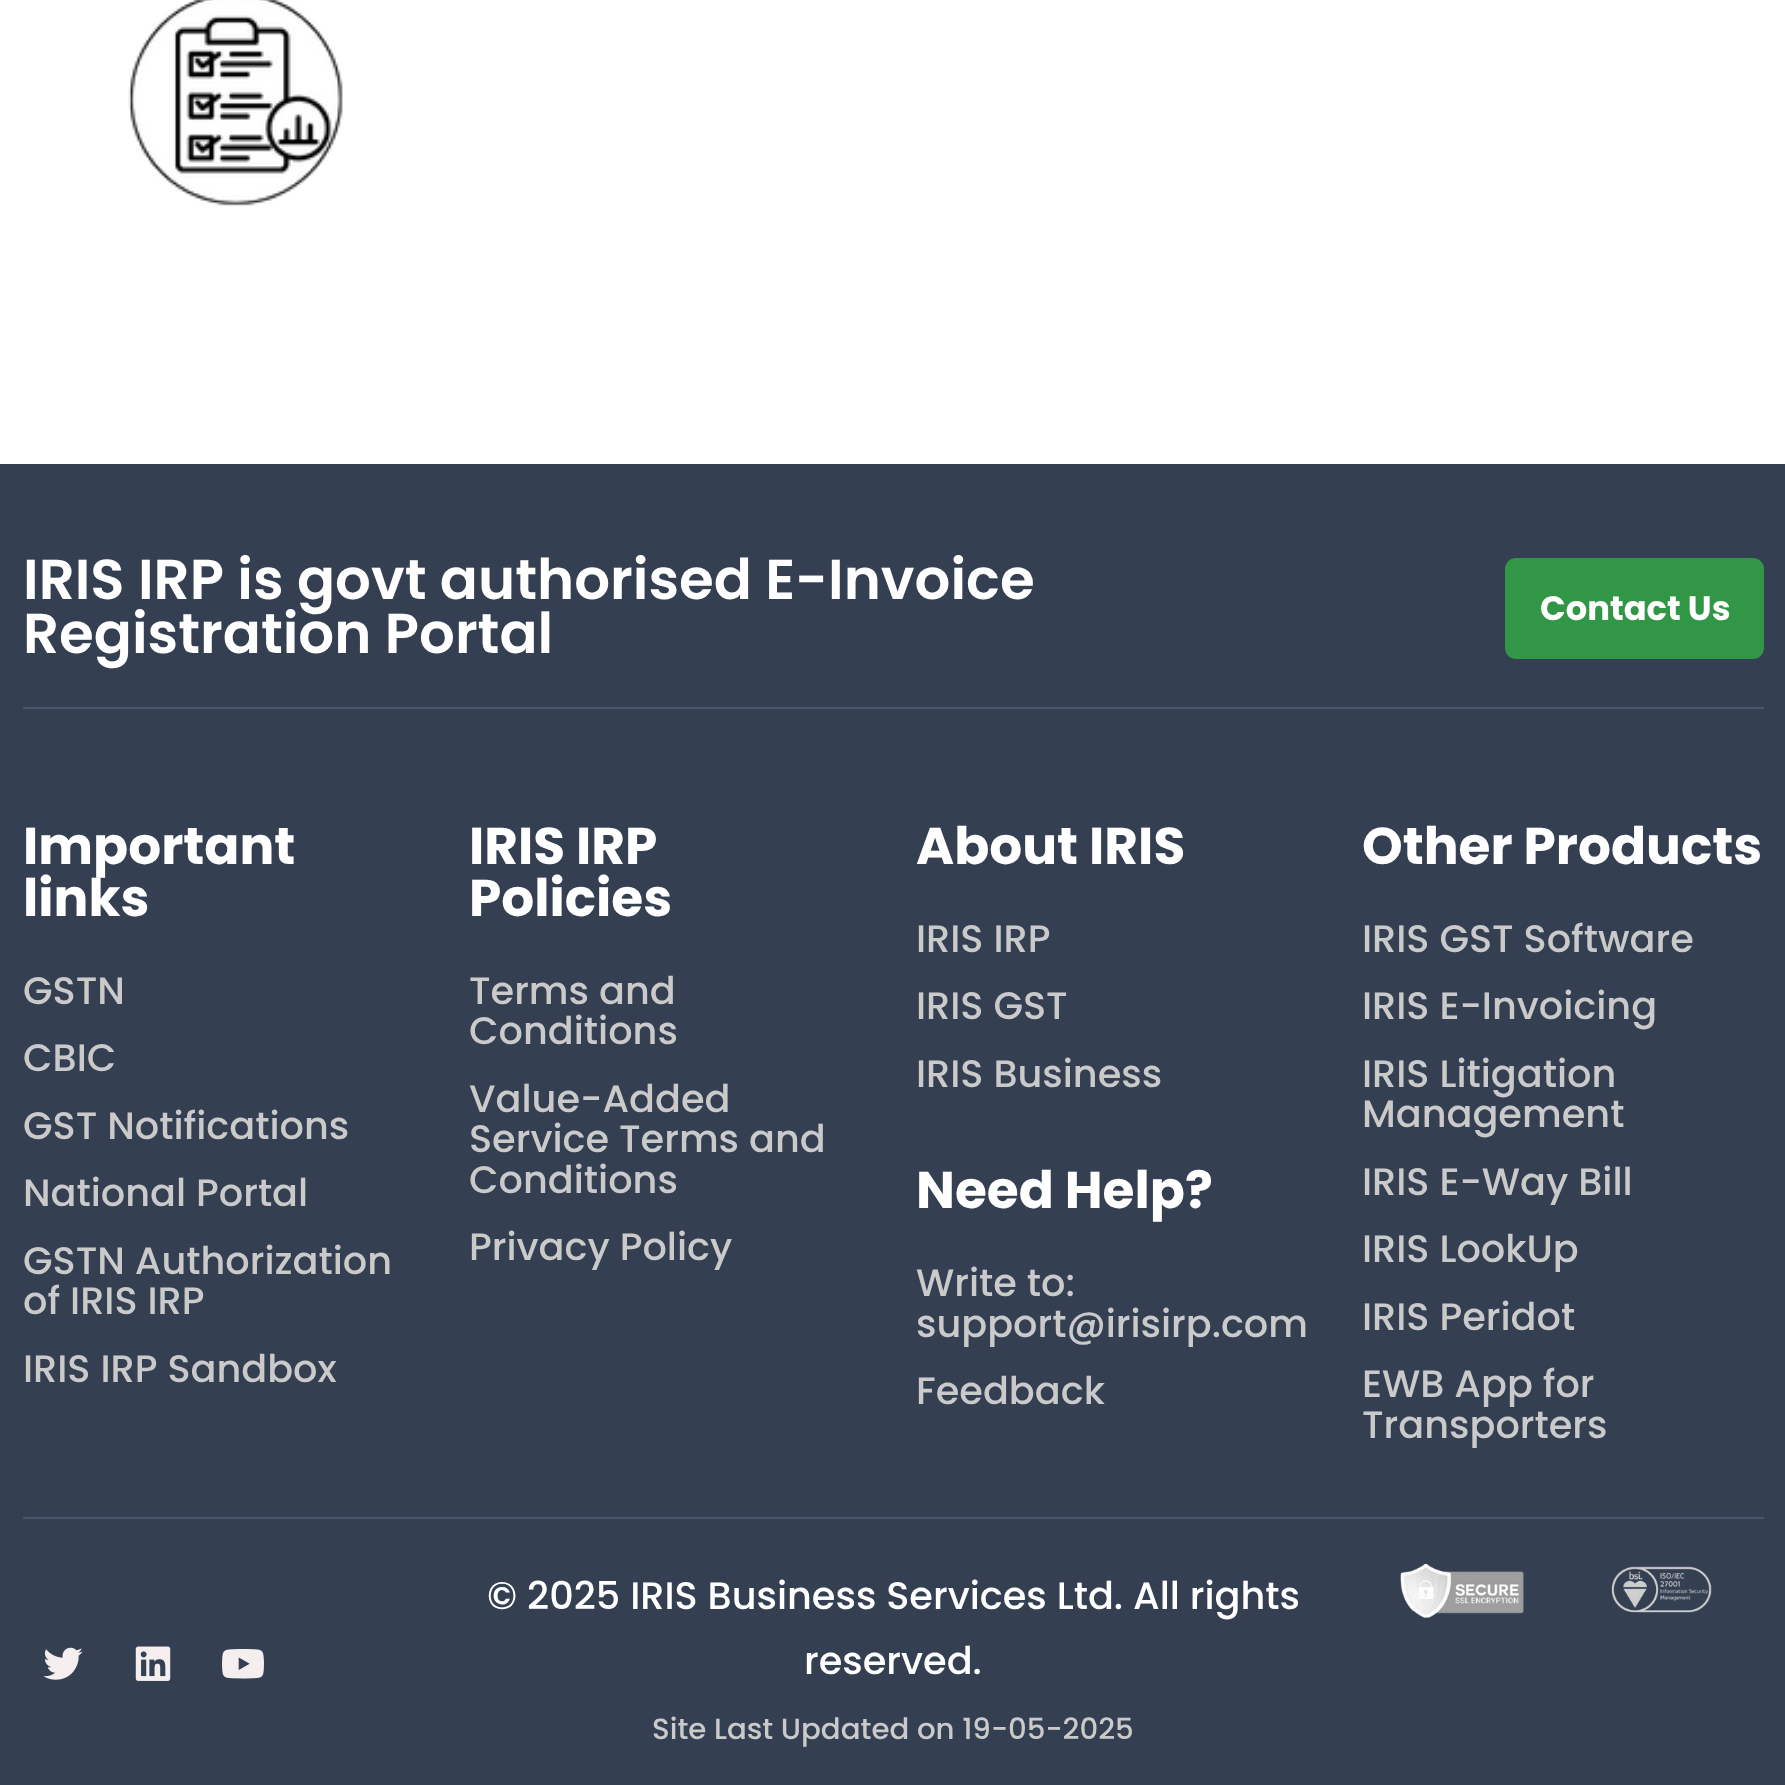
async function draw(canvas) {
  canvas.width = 1785
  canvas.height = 1785
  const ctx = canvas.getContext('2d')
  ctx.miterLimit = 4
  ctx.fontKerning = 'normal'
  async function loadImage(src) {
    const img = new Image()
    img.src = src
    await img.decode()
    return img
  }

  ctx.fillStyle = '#fff'
  ctx.fillRect(0, 0, 1785, 1785)
  ctx.drawImage(await loadImage('image0.png'), 128, 0, 215, 206)
  ctx.fillStyle = '#343f52'
  ctx.fillRect(0, 464, 1785, 1321)
  ctx.font = '600 56.25px Poppins'
  ctx.fillStyle = '#fff'
  ctx.fillText('IRIS IRP is govt authorised E-Invoice', 23, 599)
  ctx.fillText('Registration Portal', 23, 653)
  ctx.fillStyle = '#319645'
  ctx.beginPath()
  ctx.roundRect(1505, 558, 259, 101, 11)
  ctx.fill()
  ctx.font = 'bold 33.75px Poppins'
  ctx.fillStyle = '#fff'
  ctx.fillText('Contact Us', 1540, 620)
  ctx.fillStyle = '#4a5569'
  ctx.fillRect(23, 707, 1741, 2)
  ctx.font = 'bold 51.75px Poppins'
  ctx.fillStyle = '#fff'
  ctx.fillText('Important', 23, 864)
  ctx.fillText('links', 23, 916)
  ctx.font = '500 38.25px Poppins'
  ctx.fillStyle = '#cacaca'
  ctx.fillText('GSTN', 23, 1004)
  ctx.fillText('CBIC', 23, 1071)
  ctx.fillText('GST Notifications', 23, 1139)
  ctx.fillText('National Portal', 23, 1206)
  ctx.fillText('GSTN Authorization', 23, 1274)
  ctx.fillText('of IRIS IRP', 23, 1314)
  ctx.fillText('IRIS IRP Sandbox', 23, 1382)
  ctx.font = 'bold 51.75px Poppins'
  ctx.fillStyle = '#fff'
  ctx.fillText('IRIS IRP', 469, 864)
  ctx.fillText('Policies', 469, 916)
  ctx.font = '500 38.25px Poppins'
  ctx.fillStyle = '#cacaca'
  ctx.fillText('Terms and', 469, 1004)
  ctx.fillText('Conditions', 469, 1044)
  ctx.fillText('Value-Added', 469, 1112)
  ctx.fillText('Service Terms and', 469, 1152)
  ctx.fillText('Conditions', 469, 1193)
  ctx.fillText('Privacy Policy', 469, 1260)
  ctx.font = 'bold 51.75px Poppins'
  ctx.fillStyle = '#fff'
  ctx.fillText('About IRIS', 916, 864)
  ctx.font = '500 38.25px Poppins'
  ctx.fillStyle = '#cacaca'
  ctx.fillText('IRIS IRP', 916, 952)
  ctx.fillText('IRIS GST', 916, 1019)
  ctx.fillText('IRIS Business', 916, 1087)
  ctx.font = 'bold 51.75px Poppins'
  ctx.fillStyle = '#fff'
  ctx.fillText('Need Help?', 916, 1208)
  ctx.font = '500 38.25px Poppins'
  ctx.fillStyle = '#cacaca'
  ctx.fillText('Write to:', 916, 1296)
  ctx.fillText('support@irisirp.com', 916, 1337)
  ctx.fillText('Feedback', 916, 1404)
  ctx.font = 'bold 51.75px Poppins'
  ctx.fillStyle = '#fff'
  ctx.fillText('Other Products', 1362, 864)
  ctx.font = '500 38.25px Poppins'
  ctx.fillStyle = '#cacaca'
  ctx.fillText('IRIS GST Software', 1362, 952)
  ctx.fillText('IRIS E-Invoicing', 1362, 1019)
  ctx.fillText('IRIS Litigation', 1362, 1087)
  ctx.fillText('Management', 1362, 1127)
  ctx.fillText('IRIS E-Way Bill', 1362, 1195)
  ctx.fillText('IRIS LookUp', 1362, 1262)
  ctx.fillText('IRIS Peridot', 1362, 1330)
  ctx.fillText('EWB App for', 1362, 1397)
  ctx.fillText('Transporters', 1362, 1438)
  ctx.fillStyle = '#4a5569'
  ctx.fillRect(23, 1517, 1741, 2)
  ctx.drawImage(await loadImage('image1.png'), 43, 1647, 40, 33)
  ctx.drawImage(await loadImage('image2.png'), 135, 1646, 36, 35)
  ctx.drawImage(await loadImage('image3.png'), 222, 1649, 42, 30)
  ctx.fillStyle = '#fff'
  ctx.fillText('© 2025 IRIS Business Services Ltd. All rights', 487, 1609)
  ctx.fillText('reserved.', 804, 1674)
  ctx.font = '500 29.25px Poppins'
  ctx.fillStyle = '#cacaca'
  ctx.fillText('Site Last Updated on 19-05-2025', 652, 1739)
  ctx.drawImage(await loadImage('image4.png'), 1400, 1563, 124, 55)
  ctx.drawImage(await loadImage('image5.png'), 1611, 1566, 101, 47)
}

draw(document.querySelector('canvas'))
